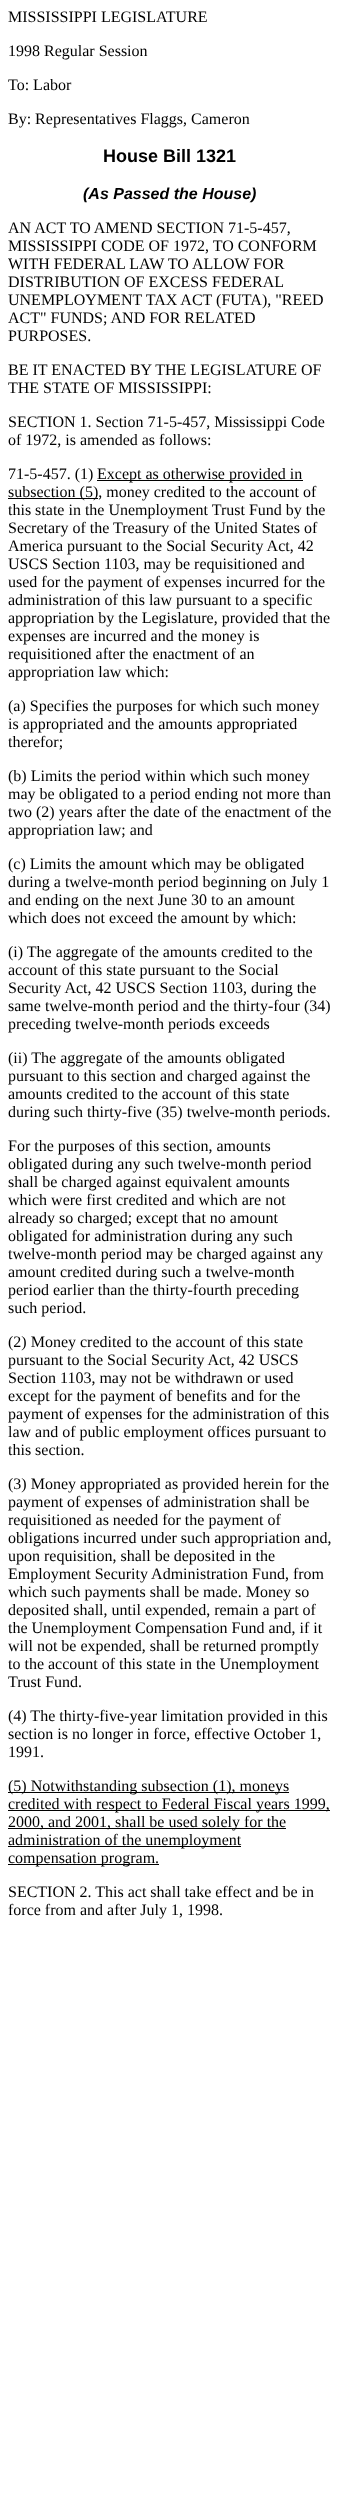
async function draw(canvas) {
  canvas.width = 340
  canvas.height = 2500
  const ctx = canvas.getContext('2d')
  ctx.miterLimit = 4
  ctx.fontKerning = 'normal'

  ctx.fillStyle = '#fff'
  ctx.fillRect(0, 0, 340, 2500)
  ctx.font = '16px Liberation Serif'
  ctx.fillStyle = '#000'
  ctx.fillText('MISSISSIPPI LEGISLATURE', 8, 22)
  ctx.fillText('1998 Regular Session', 8, 56)
  ctx.fillText('To: Labor', 8, 90)
  ctx.fillText('By: Representatives Flaggs, Cameron', 8, 124)
  ctx.font = 'bold 18px Liberation Sans'
  ctx.fillText('House Bill 1321', 103, 162)
  ctx.font = 'italic bold 16px Liberation Sans'
  ctx.fillText('(As Passed the House)', 83, 199)
  ctx.font = '16px Liberation Serif'
  ctx.fillText('AN ACT TO AMEND SECTION 71-5-457,', 8, 233)
  ctx.fillText('MISSISSIPPI CODE OF 1972, TO CONFORM', 8, 251)
  ctx.fillText('WITH FEDERAL LAW TO ALLOW FOR', 8, 269)
  ctx.fillText('DISTRIBUTION OF EXCESS FEDERAL', 8, 287)
  ctx.fillText('UNEMPLOYMENT TAX ACT (FUTA), "REED', 8, 305)
  ctx.fillText('ACT" FUNDS; AND FOR RELATED', 8, 323)
  ctx.fillText('PURPOSES.', 8, 341)
  ctx.fillText('BE IT ENACTED BY THE LEGISLATURE OF', 8, 375)
  ctx.fillText('THE STATE OF MISSISSIPPI:', 8, 393)
  ctx.fillText('SECTION 1. Section 71-5-457, Mississippi Code', 8, 427)
  ctx.fillText('of 1972, is amended as follows:', 8, 445)
  ctx.fillText('71-5-457. (1)', 8, 479)
  ctx.fillRect(97, 480, 206, 1)
  ctx.fillText('Except as otherwise provided in', 97, 479)
  ctx.fillRect(8, 498, 90, 1)
  ctx.fillText('subsection (5), money credited to the account of', 8, 497)
  ctx.fillText('this state in the Unemployment Trust Fund by the', 8, 515)
  ctx.fillText('Secretary of the Treasury of the United States of', 8, 533)
  ctx.fillText('America pursuant to the Social Security Act, 42', 8, 551)
  ctx.fillText('USCS Section 1103, may be requisitioned and', 8, 569)
  ctx.fillText('used for the payment of expenses incurred for the', 8, 587)
  ctx.fillText('administration of this law pursuant to a specific', 8, 605)
  ctx.fillText('appropriation by the Legislature, provided that the', 8, 623)
  ctx.fillText('expenses are incurred and the money is', 8, 641)
  ctx.fillText('requisitioned after the enactment of an', 8, 659)
  ctx.fillText('appropriation law which:', 8, 677)
  ctx.fillText('(a) Specifies the purposes for which such money', 8, 711)
  ctx.fillText('is appropriated and the amounts appropriated', 8, 729)
  ctx.fillText('therefor;', 8, 747)
  ctx.fillText('(b) Limits the period within which such money', 8, 781)
  ctx.fillText('may be obligated to a period ending not more than', 8, 799)
  ctx.fillText('two (2) years after the date of the enactment of the', 8, 817)
  ctx.fillText('appropriation law; and', 8, 835)
  ctx.fillText('(c) Limits the amount which may be obligated', 8, 869)
  ctx.fillText('during a twelve-month period beginning on July 1', 8, 887)
  ctx.fillText('and ending on the next June 30 to an amount', 8, 905)
  ctx.fillText('which does not exceed the amount by which:', 8, 923)
  ctx.fillText('(i) The aggregate of the amounts credited to the', 8, 957)
  ctx.fillText('account of this state pursuant to the Social', 8, 975)
  ctx.fillText('Security Act, 42 USCS Section 1103, during the', 8, 993)
  ctx.fillText('same twelve-month period and the thirty-four (34)', 8, 1011)
  ctx.fillText('preceding twelve-month periods exceeds', 8, 1029)
  ctx.fillText('(ii) The aggregate of the amounts obligated', 8, 1063)
  ctx.fillText('pursuant to this section and charged against the', 8, 1081)
  ctx.fillText('amounts credited to the account of this state', 8, 1099)
  ctx.fillText('during such thirty-five (35) twelve-month periods.', 8, 1117)
  ctx.fillText('For the purposes of this section, amounts', 8, 1151)
  ctx.fillText('obligated during any such twelve-month period', 8, 1169)
  ctx.fillText('shall be charged against equivalent amounts', 8, 1187)
  ctx.fillText('which were first credited and which are not', 8, 1205)
  ctx.fillText('already so charged; except that no amount', 8, 1223)
  ctx.fillText('obligated for administration during any such', 8, 1241)
  ctx.fillText('twelve-month period may be charged against any', 8, 1259)
  ctx.fillText('amount credited during such a twelve-month', 8, 1277)
  ctx.fillText('period earlier than the thirty-fourth preceding', 8, 1295)
  ctx.fillText('such period.', 8, 1313)
  ctx.fillText('(2) Money credited to the account of this state', 8, 1347)
  ctx.fillText('pursuant to the Social Security Act, 42 USCS', 8, 1365)
  ctx.fillText('Section 1103, may not be withdrawn or used', 8, 1383)
  ctx.fillText('except for the payment of benefits and for the', 8, 1401)
  ctx.fillText('payment of expenses for the administration of this', 8, 1419)
  ctx.fillText('law and of public employment offices pursuant to', 8, 1437)
  ctx.fillText('this section.', 8, 1455)
  ctx.fillText('(3) Money appropriated as provided herein for the', 8, 1489)
  ctx.fillText('payment of expenses of administration shall be', 8, 1507)
  ctx.fillText('requisitioned as needed for the payment of', 8, 1525)
  ctx.fillText('obligations incurred under such appropriation and,', 8, 1543)
  ctx.fillText('upon requisition, shall be deposited in the', 8, 1561)
  ctx.fillText('Employment Security Administration Fund, from', 8, 1579)
  ctx.fillText('which such payments shall be made. Money so', 8, 1597)
  ctx.fillText('deposited shall, until expended, remain a part of', 8, 1615)
  ctx.fillText('the Unemployment Compensation Fund and, if it', 8, 1633)
  ctx.fillText('will not be expended, shall be returned promptly', 8, 1651)
  ctx.fillText('to the account of this state in the Unemployment', 8, 1669)
  ctx.fillText('Trust Fund.', 8, 1687)
  ctx.fillText('(4) The thirty-five-year limitation provided in this', 8, 1721)
  ctx.fillText('section is no longer in force, effective October 1,', 8, 1739)
  ctx.fillText('1991.', 8, 1757)
  ctx.fillRect(8, 1792, 281, 1)
  ctx.fillText('(5) Notwithstanding subsection (1), moneys', 8, 1791)
  ctx.fillRect(8, 1810, 322, 1)
  ctx.fillText('credited with respect to Federal Fiscal years 1999,', 8, 1809)
  ctx.fillRect(8, 1828, 278, 1)
  ctx.fillText('2000, and 2001, shall be used solely for the', 8, 1827)
  ctx.fillRect(8, 1846, 233, 1)
  ctx.fillText('administration of the unemployment', 8, 1845)
  ctx.fillRect(8, 1864, 151, 1)
  ctx.fillText('compensation program.', 8, 1863)
  ctx.fillText('SECTION 2. This act shall take effect and be in', 8, 1897)
  ctx.fillText('force from and after July 1, 1998.', 8, 1915)
}

draw(document.querySelector('canvas'))
